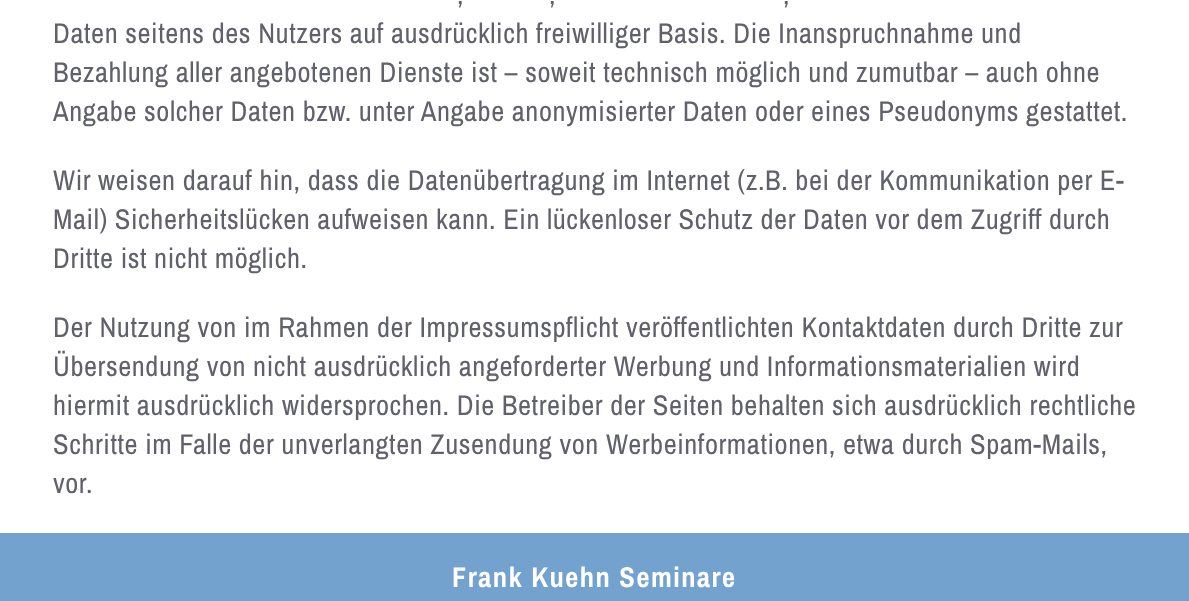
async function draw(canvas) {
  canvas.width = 1189
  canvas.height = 601
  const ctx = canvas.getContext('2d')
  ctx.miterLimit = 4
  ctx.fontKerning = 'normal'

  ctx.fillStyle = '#fff'
  ctx.fillRect(0, 0, 1189, 601)
  ctx.letterSpacing = '0.57px'
  ctx.font = '28.5px Archivo Narrow'
  ctx.fillStyle = '#60616a'
  ctx.fillText(',', 457, 4)
  ctx.fillText(',', 549, 4)
  ctx.fillText(',', 783, 4)
  ctx.fillText('Daten seitens des Nutzers auf ausdrücklich freiwilliger Basis. Die Inanspruchnahme und', 53, 43)
  ctx.fillText('Bezahlung aller angebotenen Dienste ist – soweit technisch möglich und zumutbar – auch ohne', 53, 82)
  ctx.fillText('Angabe solcher Daten bzw. unter Angabe anonymisierter Daten oder eines Pseudonyms gestattet.', 53, 121)
  ctx.fillText('Wir weisen darauf hin, dass die Datenübertragung im Internet (z.B. bei der Kommunikation per E-', 53, 190)
  ctx.fillText('Mail) Sicherheitslücken aufweisen kann. Ein lückenloser Schutz der Daten vor dem Zugriff durch', 53, 229)
  ctx.fillText('Dritte ist nicht möglich.', 53, 268)
  ctx.fillText('Der Nutzung von im Rahmen der Impressumspflicht veröffentlichten Kontaktdaten durch Dritte zur', 53, 337)
  ctx.fillText('Übersendung von nicht ausdrücklich angeforderter Werbung und Informationsmaterialien wird', 53, 376)
  ctx.fillText('hiermit ausdrücklich widersprochen. Die Betreiber der Seiten behalten sich ausdrücklich rechtliche', 53, 415)
  ctx.fillText('Schritte im Falle der unverlangten Zusendung von Werbeinformationen, etwa durch Spam-Mails,', 53, 454)
  ctx.fillText('vor.', 53, 493)
  ctx.fillStyle = '#73a2ce'
  ctx.fillRect(0, 533, 1189, 68)
  ctx.letterSpacing = '1.5px'
  ctx.font = 'bold 28.5px Archivo Narrow'
  ctx.fillStyle = '#fff'
  ctx.fillText('Frank Kuehn Seminare', 452, 587)
}

draw(document.querySelector('canvas'))
